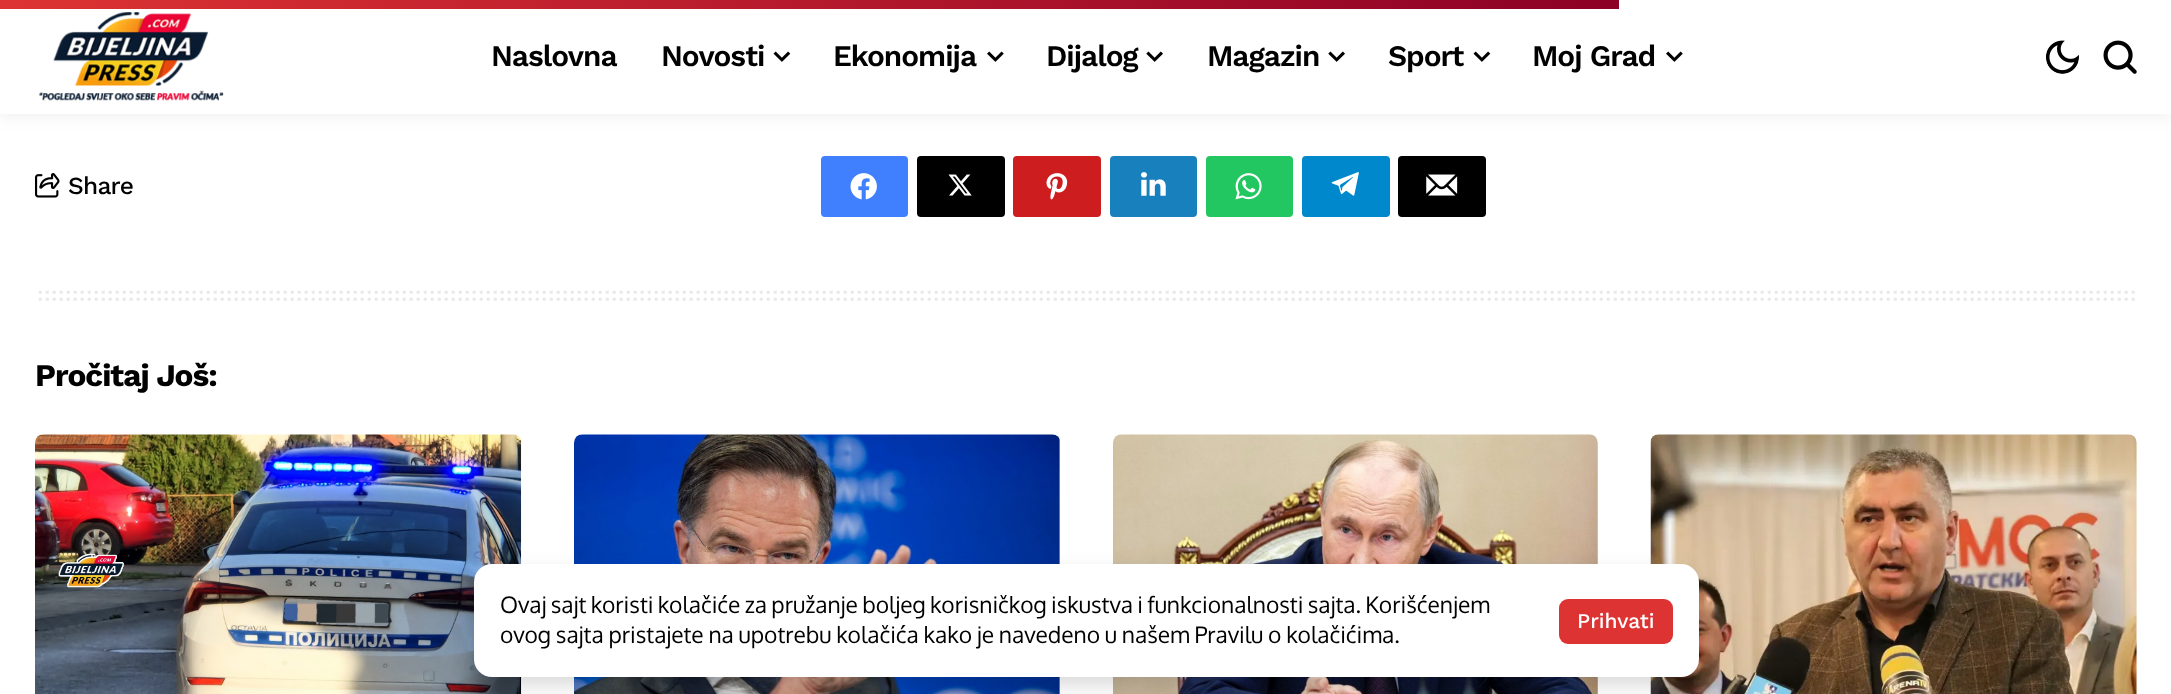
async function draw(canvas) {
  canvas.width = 2171
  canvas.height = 694
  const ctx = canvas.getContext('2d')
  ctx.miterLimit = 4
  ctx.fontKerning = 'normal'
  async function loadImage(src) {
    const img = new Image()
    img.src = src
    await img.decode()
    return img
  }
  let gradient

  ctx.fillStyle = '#fff'
  ctx.fillRect(0, 0, 2171, 694)
  ctx.fillStyle = '#0000000f'
  ctx.filter = 'blur(8px)'
  ctx.beginPath()
  ctx.rect(0, 4, 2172, 113)
  ctx.fill()
  ctx.filter = 'none'
  ctx.fillStyle = '#fff'
  ctx.fillRect(0, 0, 2171, 114)
  ctx.drawImage(await loadImage('image0.png'), 39, 12, 185, 89)
  ctx.letterSpacing = '-1px'
  ctx.font = '600 29.75px Work Sans'
  ctx.fillStyle = '#000'
  ctx.fillText('Naslovna', 491, 66)
  ctx.fillText('Novosti', 661, 66)
  ctx.drawImage(await loadImage('image1.png'), 773, 51, 18, 11)
  ctx.fillText('Ekonomija', 833, 66)
  ctx.drawImage(await loadImage('image2.png'), 987, 51, 17, 11)
  ctx.fillText('Dijalog', 1046, 66)
  ctx.drawImage(await loadImage('image3.png'), 1146, 51, 17, 11)
  ctx.fillText('Magazin', 1207, 66)
  ctx.drawImage(await loadImage('image3.png'), 1328, 51, 17, 11)
  ctx.fillText('Sport', 1388, 66)
  ctx.drawImage(await loadImage('image1.png'), 1473, 51, 18, 11)
  ctx.fillText('Moj Grad', 1532, 66)
  ctx.drawImage(await loadImage('image2.png'), 1666, 51, 17, 11)
  ctx.drawImage(await loadImage('image4.png'), 2046, 40, 33, 34)
  ctx.drawImage(await loadImage('image5.png'), 2103, 40, 34, 34)
  gradient = ctx.createLinearGradient(0, 4.4, 1619, 4.4)
  gradient.addColorStop(0, '#d33')
  gradient.addColorStop(1, '#8c0025')
  ctx.fillStyle = gradient
  ctx.fillRect(0, 0, 1619, 9)
  ctx.drawImage(await loadImage('image6.png'), 35, 173, 25, 25)
  ctx.letterSpacing = '-0.75px'
  ctx.font = '500 24.5px Work Sans'
  ctx.fillStyle = '#000'
  ctx.fillText('Share', 68, 194)
  ctx.fillStyle = '#4080ff'
  ctx.beginPath()
  ctx.roundRect(821, 156, 87, 61, 4)
  ctx.fill()
  ctx.drawImage(await loadImage('image7.png'), 850, 173, 27, 27)
  ctx.fillStyle = '#000'
  ctx.beginPath()
  ctx.roundRect(917, 156, 88, 61, 4)
  ctx.fill()
  ctx.drawImage(await loadImage('image8.png'), 948, 174, 24, 22)
  ctx.fillStyle = '#cd1d1f'
  ctx.beginPath()
  ctx.roundRect(1013, 156, 88, 61, 4)
  ctx.fill()
  ctx.drawImage(await loadImage('image9.png'), 1046, 173, 22, 27)
  ctx.fillStyle = '#1980be'
  ctx.beginPath()
  ctx.roundRect(1110, 156, 87, 61, 4)
  ctx.fill()
  ctx.drawImage(await loadImage('image10.png'), 1141, 172, 25, 24)
  ctx.fillStyle = '#23c761'
  ctx.beginPath()
  ctx.roundRect(1206, 156, 87, 61, 4)
  ctx.fill()
  ctx.drawImage(await loadImage('image11.png'), 1235, 173, 27, 27)
  ctx.fillStyle = '#08c'
  ctx.beginPath()
  ctx.roundRect(1302, 156, 88, 61, 4)
  ctx.fill()
  ctx.drawImage(await loadImage('image12.png'), 1331, 172, 28, 24)
  ctx.fillStyle = '#000'
  ctx.beginPath()
  ctx.roundRect(1398, 156, 88, 61, 4)
  ctx.fill()
  ctx.drawImage(await loadImage('image13.png'), 1426, 174, 32, 22)
  ctx.beginPath()
  ctx.moveTo(40.2, 292.2)
  ctx.lineTo(2133.6, 292.2)
  ctx.strokeStyle = '#e9e9e9'
  ctx.lineWidth = 3.5
  ctx.lineCap = 'round'
  ctx.setLineDash([0, 7])
  ctx.stroke()
  ctx.beginPath()
  ctx.moveTo(40.2, 299.2)
  ctx.lineTo(2133.6, 299.2)
  ctx.stroke()
  ctx.letterSpacing = '-1px'
  ctx.font = 'bold 31.5px Work Sans'
  ctx.fillText('Pročitaj Još:', 35, 386)
  ctx.drawImage(await loadImage('image14.png'), 35, 434, 487, 260)
  ctx.drawImage(await loadImage('image15.png'), 574, 434, 486, 260)
  ctx.drawImage(await loadImage('image16.png'), 1113, 434, 485, 260)
  ctx.drawImage(await loadImage('image17.png'), 1650, 434, 487, 260)
  ctx.fillStyle = '#00000033'
  ctx.filter = 'blur(13px)'
  ctx.beginPath()
  ctx.roundRect(480, 578, 1214, 103, 12)
  ctx.fill()
  ctx.filter = 'none'
  ctx.fillStyle = '#fff'
  ctx.beginPath()
  ctx.roundRect(474, 564, 1225, 113, 18)
  ctx.fill()
  ctx.letterSpacing = '0px'
  ctx.wordSpacing = '-1.4px'
  ctx.font = '22.75px Oxygen'
  ctx.fillStyle = '#000'
  ctx.fillText('Ovaj sajt koristi kolačiće za pružanje boljeg korisničkog iskustva i funkcionalnosti sajta. Korišćenjem', 500, 613)
  ctx.wordSpacing = '-0.9px'
  ctx.fillText('ovog sajta pristajete na upotrebu kolačića kako je navedeno u našem Pravilu o kolačićima.', 500, 643)
  ctx.fillStyle = '#d33'
  ctx.beginPath()
  ctx.roundRect(1559, 599, 114, 45, 9)
  ctx.fill()
  ctx.wordSpacing = '0px'
  ctx.font = '500 21px Work Sans'
  ctx.fillStyle = '#fff'
  ctx.fillText('Prihvati', 1577, 628)
}

draw(document.querySelector('canvas'))
